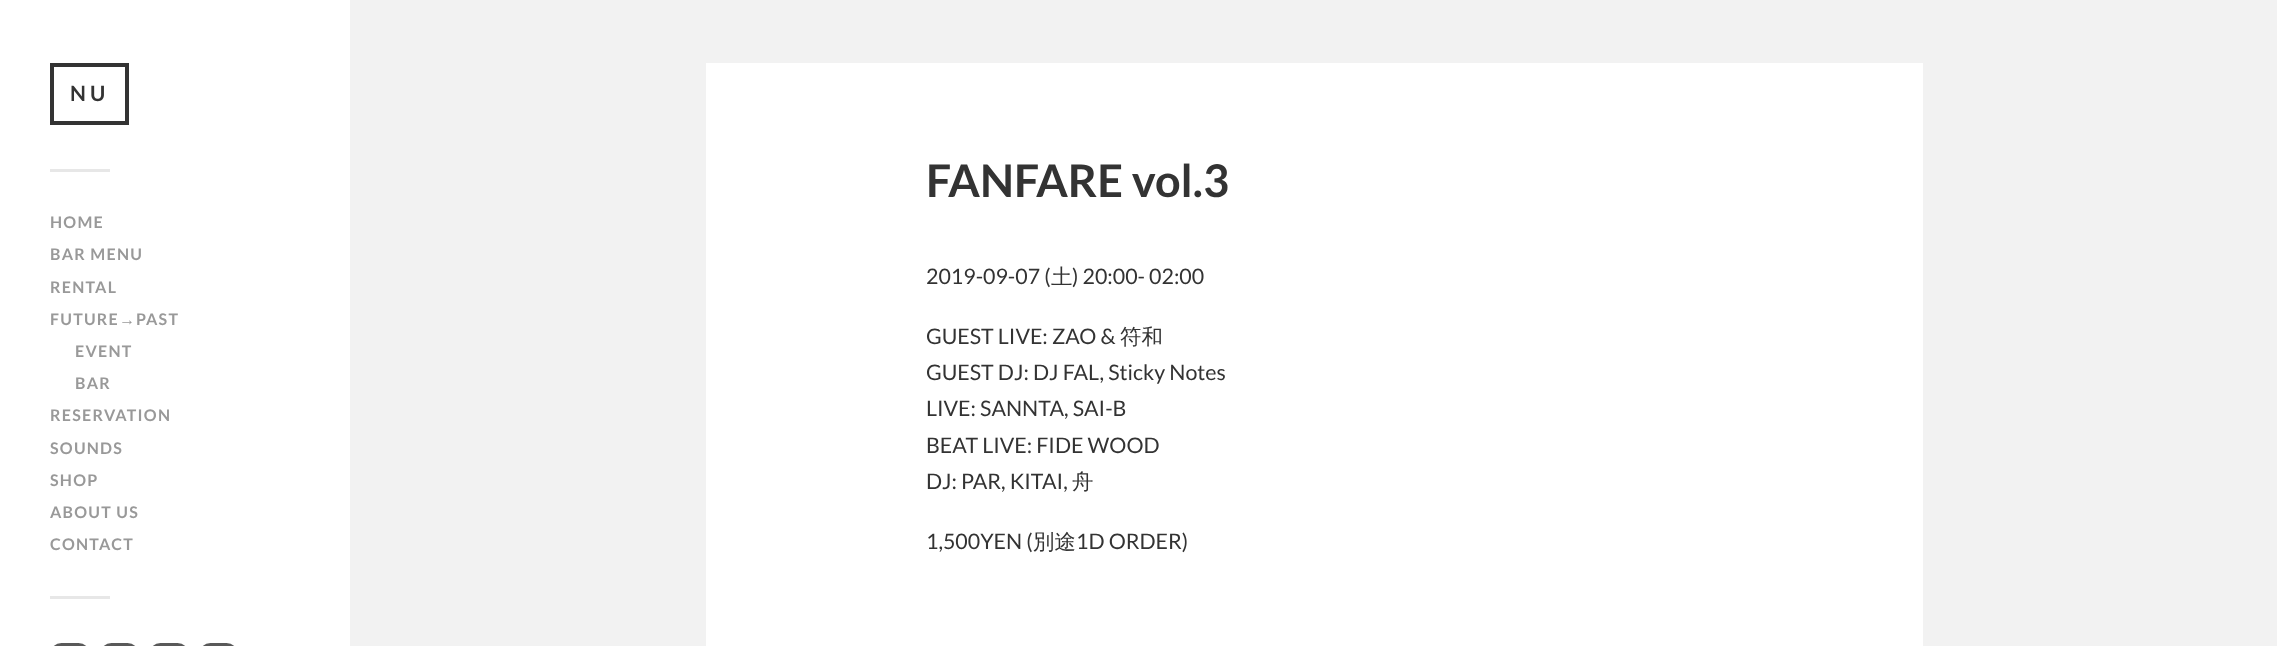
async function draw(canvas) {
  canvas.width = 2277
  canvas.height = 646
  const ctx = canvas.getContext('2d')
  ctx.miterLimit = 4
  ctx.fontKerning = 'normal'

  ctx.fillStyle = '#f2f2f2'
  ctx.fillRect(0, 0, 2277, 646)
  ctx.fillStyle = '#fff'
  ctx.fillRect(0, 0, 350, 646)
  ctx.strokeStyle = '#333'
  ctx.lineWidth = 4
  ctx.strokeRect(52, 65, 75, 58)
  ctx.letterSpacing = '4px'
  ctx.font = 'bold 21px Lato'
  ctx.fillStyle = '#333'
  ctx.fillText('NU', 70, 101)
  ctx.fillStyle = '#e7e7e7'
  ctx.fillRect(50, 169, 60, 3)
  ctx.letterSpacing = '1.25px'
  ctx.font = 'bold 16px Lato'
  ctx.fillStyle = '#999'
  ctx.fillText('HOME', 50, 228)
  ctx.fillText('BAR MENU', 50, 260)
  ctx.fillText('RENTAL', 50, 293)
  ctx.fillText('FUTURE', 50, 325)
  ctx.font = 'bold 16px Liberation Sans'
  ctx.fillText('→', 119, 325)
  ctx.font = 'bold 16px Lato'
  ctx.fillText('PAST', 136, 325)
  ctx.fillText('EVENT', 75, 357)
  ctx.fillText('BAR', 75, 389)
  ctx.fillText('RESERVATION', 50, 421)
  ctx.fillText('SOUNDS', 50, 454)
  ctx.fillText('SHOP', 50, 486)
  ctx.fillText('ABOUT US', 50, 518)
  ctx.fillText('CONTACT', 50, 550)
  ctx.fillStyle = '#e7e7e7'
  ctx.fillRect(50, 596, 60, 3)
  ctx.fillStyle = '#595959'
  ctx.beginPath()
  ctx.roundRect(50, 643, 40, 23, 20)
  ctx.fill()
  ctx.beginPath()
  ctx.roundRect(100, 643, 39, 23, 19.5)
  ctx.fill()
  ctx.beginPath()
  ctx.roundRect(149, 643, 40, 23, 20)
  ctx.fill()
  ctx.beginPath()
  ctx.roundRect(199, 643, 39, 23, 19.5)
  ctx.fill()
  ctx.fillStyle = '#fff'
  ctx.fillRect(706, 63, 1217, 583)
  ctx.letterSpacing = '0px'
  ctx.font = 'bold 45px Lato'
  ctx.fillStyle = '#333'
  ctx.fillText('FANFARE vol.3', 926, 197)
  ctx.font = '21.4px Lato'
  ctx.fillText('2019-09-07 (', 926, 284)
  ctx.font = '500 21.4px WenQuanYi Zen Hei'
  ctx.fillText('土', 1051, 284)
  ctx.font = '21.4px Lato'
  ctx.fillText(') 20:00- 02:00', 1072, 284)
  ctx.fillText('GUEST LIVE: ZAO &', 926, 344)
  ctx.font = '500 21.4px WenQuanYi Zen Hei'
  ctx.fillText('符和', 1120, 344)
  ctx.font = '21.4px Lato'
  ctx.fillText('GUEST DJ: DJ FAL, Sticky Notes', 926, 380)
  ctx.fillText('LIVE: SANNTA, SAI-B', 926, 416)
  ctx.fillText('BEAT LIVE: FIDE WOOD', 926, 453)
  ctx.fillText('DJ: PAR, KITAI,', 926, 489)
  ctx.font = '500 21.4px WenQuanYi Zen Hei'
  ctx.fillText('舟', 1072, 489)
  ctx.font = '21.4px Lato'
  ctx.fillText('1,500YEN (', 926, 549)
  ctx.font = '500 21.4px WenQuanYi Zen Hei'
  ctx.fillText('別途', 1033, 549)
  ctx.font = '21.4px Lato'
  ctx.fillText('1D ORDER)', 1076, 549)
}

draw(document.querySelector('canvas'))
